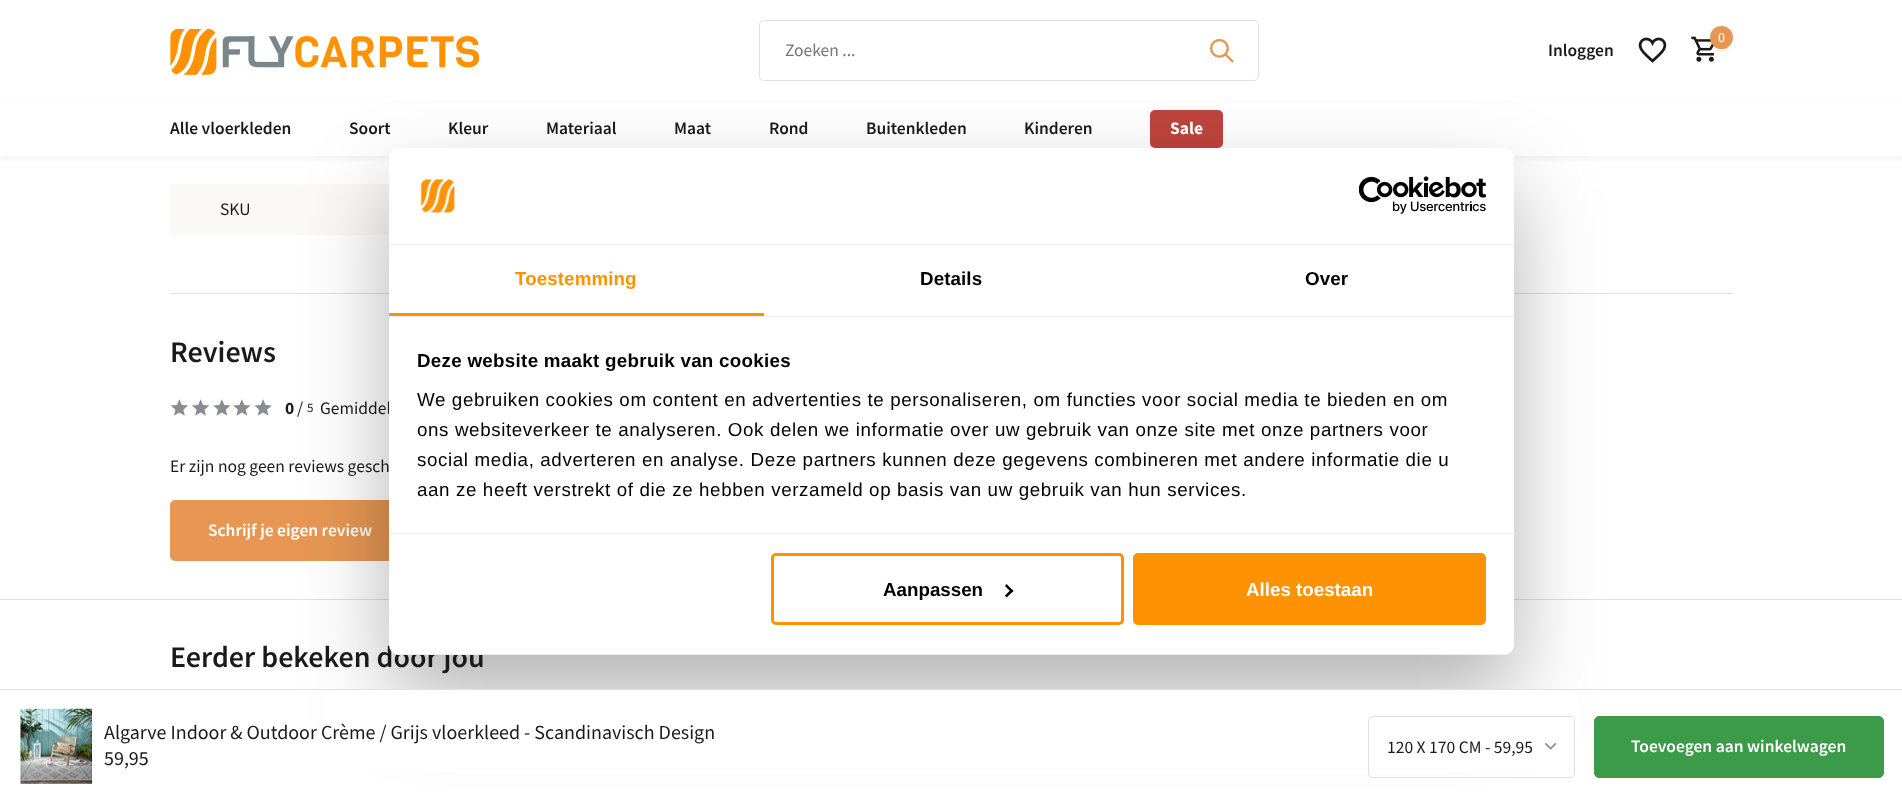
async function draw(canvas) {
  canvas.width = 1902
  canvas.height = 802
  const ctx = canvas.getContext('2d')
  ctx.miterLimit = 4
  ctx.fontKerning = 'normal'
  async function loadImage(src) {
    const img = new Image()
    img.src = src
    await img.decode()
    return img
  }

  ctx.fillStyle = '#fff'
  ctx.fillRect(0, 0, 1902, 802)
  ctx.drawImage(await loadImage('image0.png'), 170, 29, 309, 46)
  ctx.beginPath()
  ctx.roundRect(759.5, 20.5, 499, 60, 4.5)
  ctx.strokeStyle = '#e1e1e1'
  ctx.stroke()
  ctx.font = '17.5px Source Sans Pro'
  ctx.fillStyle = '#757575'
  ctx.fillText('Zoeken ...', 785, 56)
  ctx.drawImage(await loadImage('image1.png'), 1210, 38, 24, 25)
  ctx.font = '600 17.5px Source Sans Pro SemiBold'
  ctx.fillStyle = '#1a1a1a'
  ctx.fillText('Inloggen', 1548, 56)
  ctx.drawImage(await loadImage('image2.png'), 1638, 37, 29, 26)
  ctx.drawImage(await loadImage('image3.png'), 1691, 36, 23, 26)
  ctx.fillStyle = '#0000000f'
  ctx.filter = 'blur(1px)'
  ctx.beginPath()
  ctx.roundRect(1710, 29, 23, 22, 11)
  ctx.fill()
  ctx.filter = 'none'
  ctx.fillStyle = '#e79753'
  ctx.beginPath()
  ctx.arc(1721.5, 37.5, 11.5, 0, 2 * Math.PI)
  ctx.fill()
  ctx.font = '14px Source Sans Pro'
  ctx.fillStyle = '#fff'
  ctx.fillText('0', 1718, 42)
  ctx.fillStyle = '#0000000a'
  ctx.filter = 'blur(2px)'
  ctx.beginPath()
  ctx.rect(0, 104, 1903, 56)
  ctx.fill()
  ctx.filter = 'none'
  ctx.fillStyle = '#fff'
  ctx.fillRect(0, 103, 1902, 53)
  ctx.font = '600 17.5px Source Sans Pro SemiBold'
  ctx.fillStyle = '#1a1a1a'
  ctx.fillText('Alle vloerkleden', 170, 134)
  ctx.fillText('Soort', 349, 134)
  ctx.fillText('Kleur', 448, 134)
  ctx.fillText('Materiaal', 546, 134)
  ctx.fillText('Maat', 674, 134)
  ctx.fillText('Rond', 769, 134)
  ctx.fillText('Buitenkleden', 866, 134)
  ctx.fillText('Kinderen', 1024, 134)
  ctx.fillStyle = '#bf443d'
  ctx.beginPath()
  ctx.roundRect(1150, 110, 73, 38, 5)
  ctx.fill()
  ctx.font = 'bold 17.5px Source Sans Pro'
  ctx.fillStyle = '#fff'
  ctx.fillText('Sale', 1170, 134)
  ctx.fillStyle = '#faf9f7'
  ctx.fillRect(170, 184, 219, 51)
  ctx.font = '17.5px Source Sans Pro'
  ctx.fillStyle = '#1a1a1a'
  ctx.fillText('SKU', 220, 215)
  ctx.fillStyle = '#e1e1e1'
  ctx.fillRect(170, 293, 1563, 1)
  ctx.font = '600 30px Source Sans Pro SemiBold'
  ctx.fillStyle = '#1a1a1a'
  ctx.fillText('Reviews', 170, 362)
  ctx.drawImage(await loadImage('image4.png'), 170, 399, 18, 17)
  ctx.drawImage(await loadImage('image5.png'), 192, 399, 18, 17)
  ctx.drawImage(await loadImage('image6.png'), 213, 399, 18, 17)
  ctx.drawImage(await loadImage('image6.png'), 233, 399, 18, 17)
  ctx.drawImage(await loadImage('image7.png'), 254, 399, 18, 17)
  ctx.font = 'bold 17.5px Source Sans Pro'
  ctx.fillText('0', 285, 414)
  ctx.font = '17.5px Source Sans Pro'
  ctx.fillText('/', 297, 414)
  ctx.font = '13px Source Sans Pro'
  ctx.fillText('5', 307, 412)
  ctx.font = '17.5px Source Sans Pro'
  ctx.fillText('Gemiddel', 320, 414)
  ctx.fillText('Er zijn nog geen reviews gesch', 170, 472)
  ctx.fillStyle = '#e79753'
  ctx.beginPath()
  ctx.roundRect(170.5, 500.5, 238, 60, 4.5)
  ctx.fill()
  ctx.strokeStyle = '#e79753'
  ctx.stroke()
  ctx.font = '600 17.5px Source Sans Pro SemiBold'
  ctx.fillStyle = '#fff'
  ctx.fillText('Schrijf je eigen review', 208, 536)
  ctx.fillStyle = '#e1e1e1'
  ctx.fillRect(0, 599, 1902, 1)
  ctx.fillStyle = '#0000004d'
  ctx.filter = 'blur(42.5px)'
  ctx.beginPath()
  ctx.roundRect(389, 188, 1125, 507, 10)
  ctx.fill()
  ctx.filter = 'none'
  ctx.font = '600 30px Source Sans Pro SemiBold'
  ctx.fillStyle = '#1a1a1a'
  ctx.fillText('Eerder bekeken door jou', 170, 667)
  ctx.fillStyle = '#fff'
  ctx.beginPath()
  ctx.roundRect(389, 148, 1125, 507, 10)
  ctx.fill()
  ctx.fillStyle = '#eee'
  ctx.fillRect(389, 244, 1125, 1)
  ctx.drawImage(await loadImage('image8.png'), 420, 179, 36, 35)
  ctx.drawImage(await loadImage('image9.png'), 1359, 176, 127, 38)
  ctx.fillRect(389, 316, 1125, 1)
  ctx.fillStyle = '#fe9202'
  ctx.fillRect(389, 313, 375, 3)
  ctx.letterSpacing = '0.1px'
  ctx.font = 'bold 18.75px Liberation Sans'
  ctx.fillText('Toestemming', 515, 285)
  ctx.fillStyle = '#000'
  ctx.fillText('Details', 920, 285)
  ctx.fillText('Over', 1305, 285)
  ctx.fillStyle = '#eee'
  ctx.fillRect(389, 533, 1125, 1)
  ctx.letterSpacing = '0.3px'
  ctx.fillStyle = '#000'
  ctx.fillText('Deze website maakt gebruik van cookies', 417, 367)
  ctx.letterSpacing = '0.62px'
  ctx.font = '18.75px Liberation Sans'
  ctx.fillText('We gebruiken cookies om content en advertenties te personaliseren, om functies voor social media te bieden en om', 417, 406)
  ctx.fillText('ons websiteverkeer te analyseren. Ook delen we informatie over uw gebruik van onze site met onze partners voor', 417, 436)
  ctx.fillText('social media, adverteren en analyse. Deze partners kunnen deze gegevens combineren met andere informatie die u', 417, 466)
  ctx.fillText('aan ze heeft verstrekt of die ze hebben verzameld op basis van uw gebruik van hun services.', 417, 496)
  ctx.save()
  ctx.beginPath()
  ctx.roundRect(389, 148, 1125, 507, 10)
  ctx.clip()
  ctx.fillStyle = '#eee'
  ctx.fillRect(389, 654, 1125, 1)
  ctx.restore()
  ctx.beginPath()
  ctx.roundRect(772.5, 554.5, 350, 69, 3.5)
  ctx.strokeStyle = '#fe9202'
  ctx.lineWidth = 3
  ctx.stroke()
  ctx.letterSpacing = '0px'
  ctx.font = 'bold 18.75px Liberation Sans'
  ctx.fillText('Aanpassen', 883, 596)
  ctx.beginPath()
  ctx.moveTo(1006.5, 584)
  ctx.lineTo(1013.5, 591)
  ctx.lineTo(1011.5, 592.5)
  ctx.lineTo(1005, 586)
  ctx.closePath()
  ctx.fill()
  ctx.beginPath()
  ctx.moveTo(1011.5, 589)
  ctx.lineTo(1013.5, 591)
  ctx.lineTo(1006.5, 597.5)
  ctx.lineTo(1005, 595.5)
  ctx.closePath()
  ctx.fill()
  ctx.fillStyle = '#fe9202'
  ctx.beginPath()
  ctx.roundRect(1134.5, 554.5, 350, 69, 3.5)
  ctx.fill()
  ctx.stroke()
  ctx.fillStyle = '#fff'
  ctx.fillText('Alles toestaan', 1246, 596)
  ctx.fillRect(324, 690, 1255, 83)
  ctx.fillStyle = '#e1e1e1'
  ctx.fillRect(0, 689, 1902, 1)
  ctx.drawImage(await loadImage('image10.png'), 19, 708, 75, 76)
  ctx.font = '20px Source Sans Pro'
  ctx.fillStyle = '#1a1a1a'
  ctx.fillText('Algarve Indoor & Outdoor Crème / Grijs vloerkleed - Scandinavisch Design', 104, 739)
  ctx.fillText('59,95', 104, 765)
  ctx.beginPath()
  ctx.roundRect(1368.5, 716.5, 206, 61, 4.5)
  ctx.strokeStyle = '#e1e1e1'
  ctx.lineWidth = 1
  ctx.stroke()
  ctx.font = '17.5px Source Sans Pro'
  ctx.fillText('120 X 170 CM - 59,95', 1387, 753)
  ctx.drawImage(await loadImage('image11.png'), 1545, 743, 12, 7)
  ctx.fillStyle = '#3c9b48'
  ctx.beginPath()
  ctx.roundRect(1594.5, 716.5, 289, 61, 4.5)
  ctx.fill()
  ctx.strokeStyle = '#3c9b48'
  ctx.stroke()
  ctx.font = '600 17.5px Source Sans Pro SemiBold'
  ctx.fillStyle = '#fff'
  ctx.fillText('Toevoegen aan winkelwagen', 1631, 752)
}

draw(document.querySelector('canvas'))
